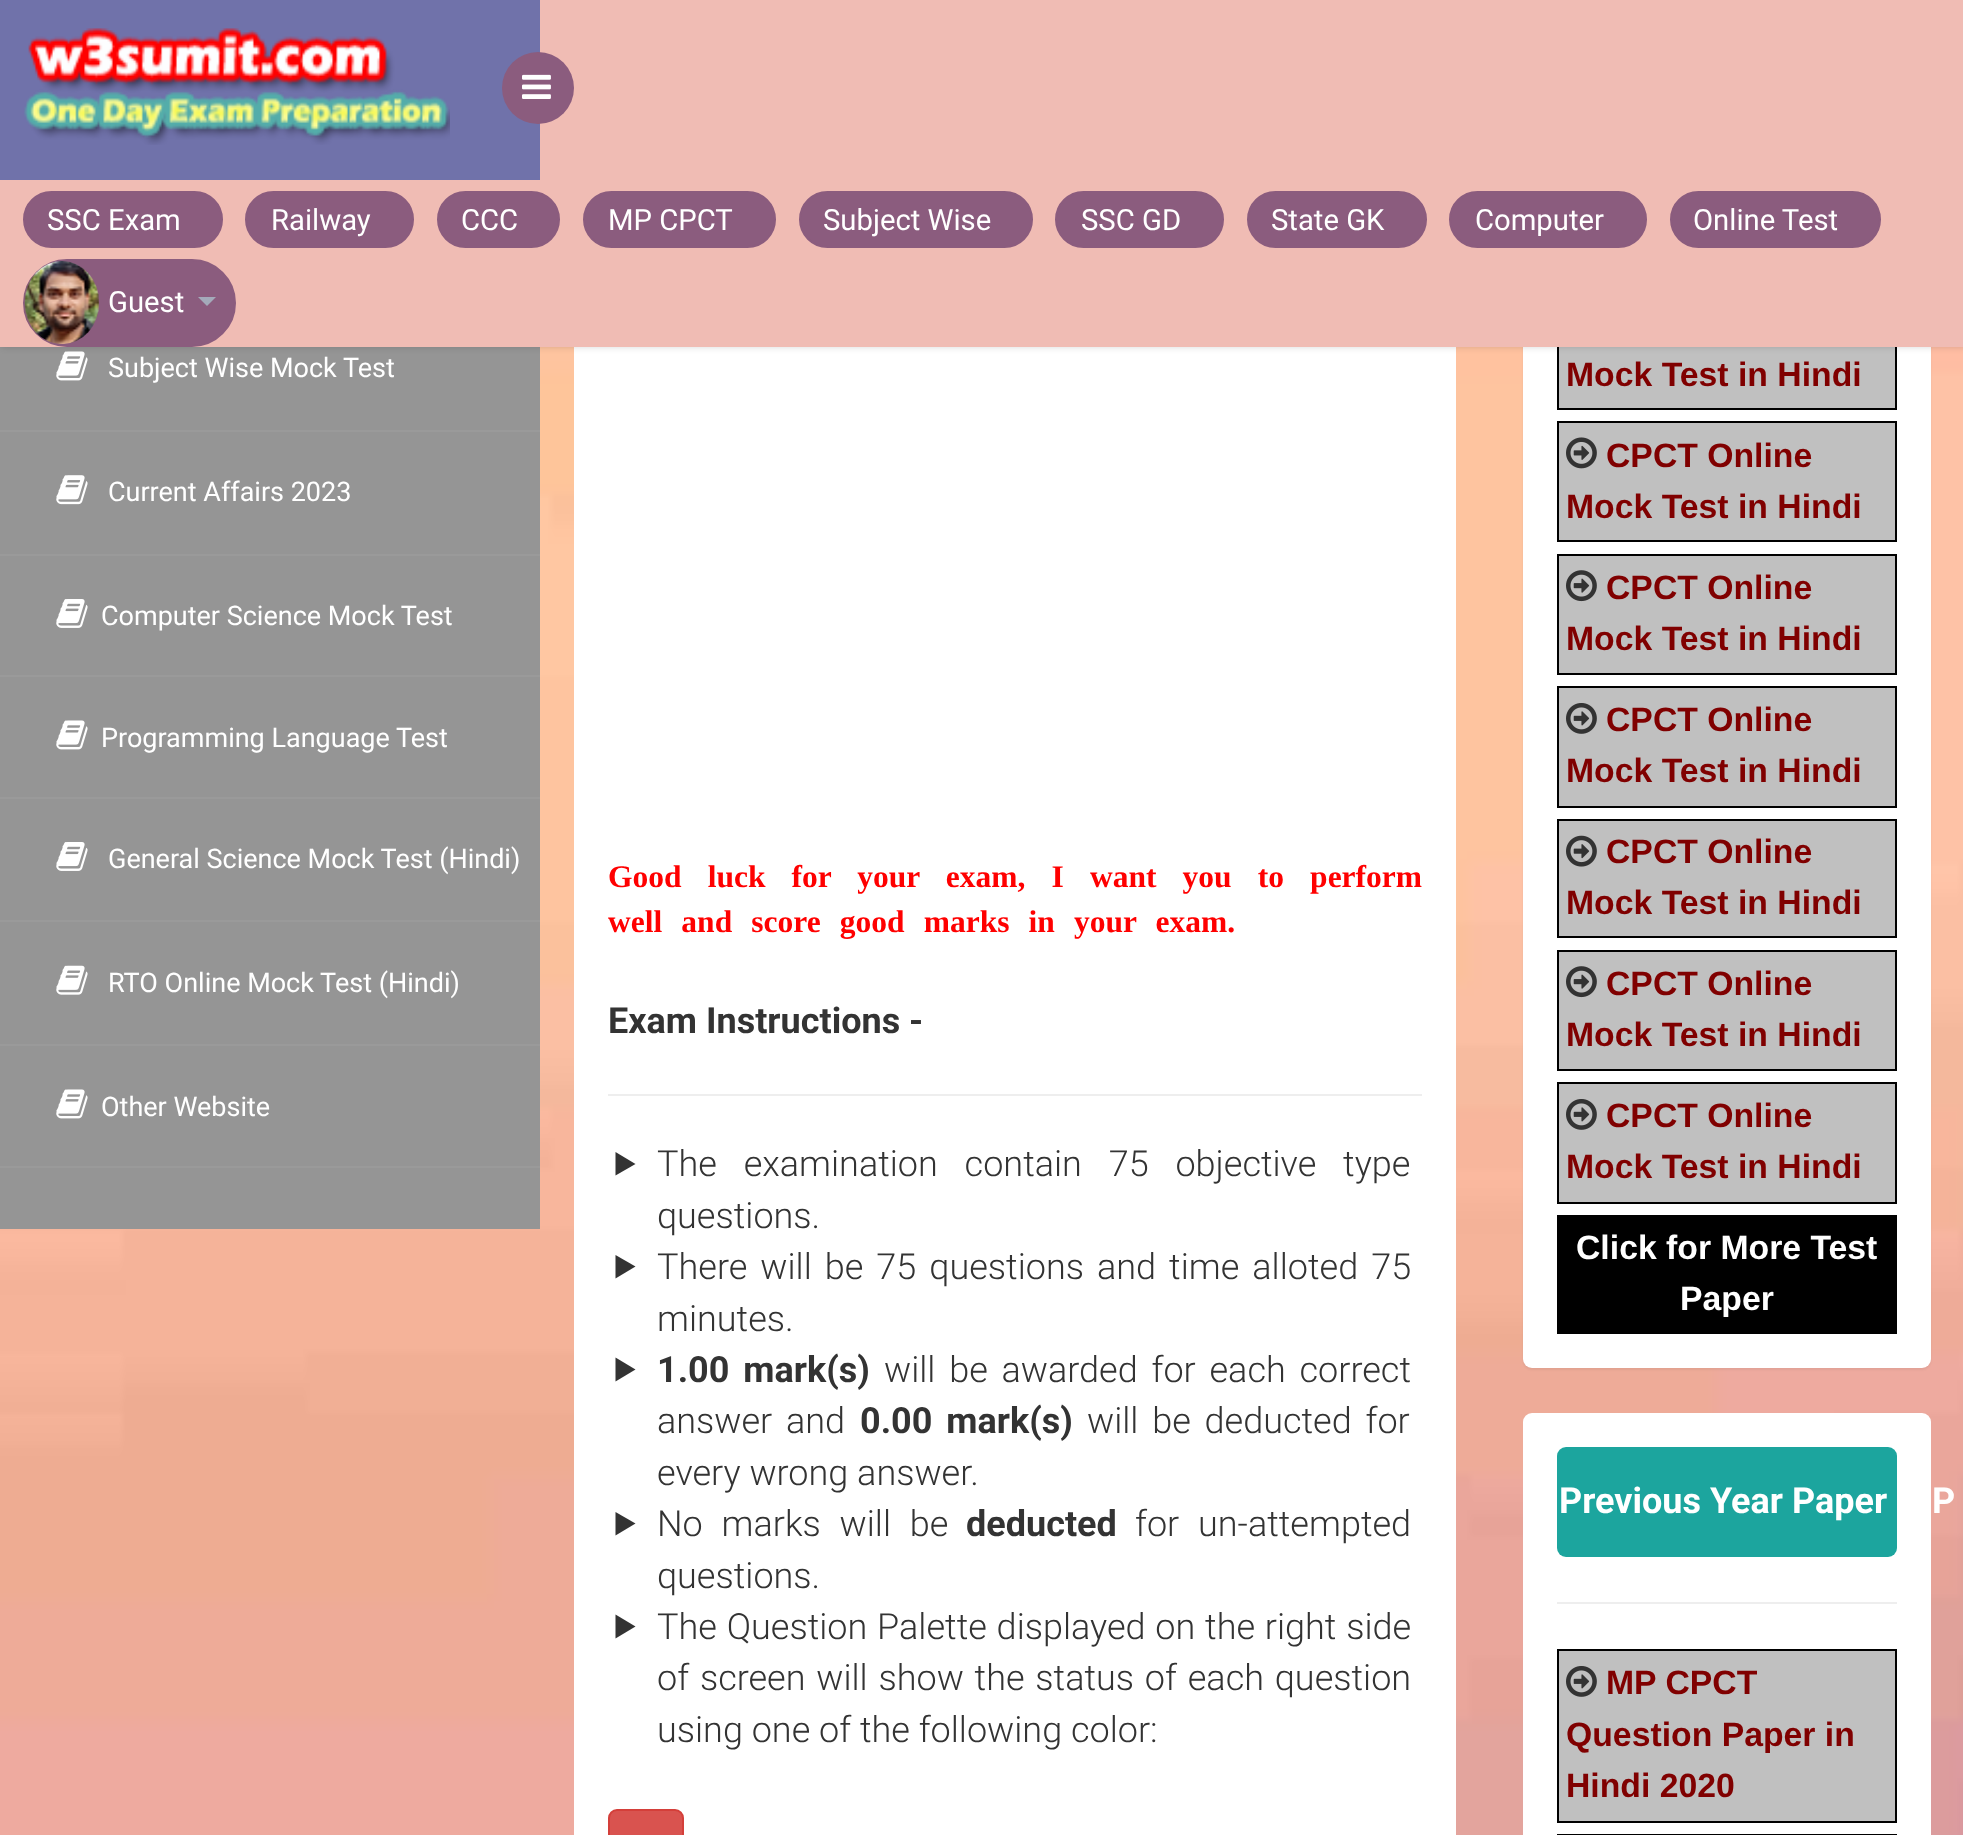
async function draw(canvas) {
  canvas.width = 1963
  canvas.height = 1835
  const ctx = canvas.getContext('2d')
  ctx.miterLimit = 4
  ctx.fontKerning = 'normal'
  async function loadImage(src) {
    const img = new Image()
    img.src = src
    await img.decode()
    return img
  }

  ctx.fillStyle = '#fff'
  ctx.fillRect(0, 0, 1963, 1835)
  ctx.drawImage(await loadImage('image0.png'), 0, 347, 1963, 1488)
  ctx.fillStyle = '#959595'
  ctx.fillRect(0, 347, 540, 882)
  ctx.drawImage(await loadImage('image4.png'), 56, 351, 32, 30)
  ctx.fillStyle = '#fff'
  ctx.fillRect(574, 347, 882, 1488)
  ctx.fillStyle = '#0000000d'
  ctx.filter = 'blur(1px)'
  ctx.beginPath()
  ctx.roundRect(1523, -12, 408, 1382, 9)
  ctx.fill()
  ctx.filter = 'none'
  ctx.fillStyle = '#fff'
  ctx.beginPath()
  ctx.roundRect(1523, -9, 408, 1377, 9)
  ctx.fill()
  ctx.fillStyle = '#c0c0c0'
  ctx.fillRect(1559, 347, 336, 61)
  ctx.strokeStyle = '#000'
  ctx.lineWidth = 2
  ctx.strokeRect(1558, 291, 338, 118)
  ctx.fillStyle = '#00000026'
  ctx.filter = 'blur(3.5px)'
  ctx.beginPath()
  ctx.rect(2, 0, 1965, 347)
  ctx.fill()
  ctx.filter = 'none'
  ctx.fillStyle = '#f0bcb4'
  ctx.fillRect(0, 0, 1963, 347)
  ctx.fillStyle = '#7072aa'
  ctx.fillRect(0, 0, 540, 180)
  ctx.drawImage(await loadImage('image1.png'), 24, 28, 426, 117)
  ctx.fillStyle = '#8b5c7e'
  ctx.beginPath()
  ctx.arc(538, 88, 36, 0, 2 * Math.PI)
  ctx.fill()
  ctx.drawImage(await loadImage('image2.png'), 522, 74, 29, 25)
  ctx.beginPath()
  ctx.roundRect(24, 192, 198, 55, 27.5)
  ctx.fill()
  ctx.strokeStyle = '#8b5c7e'
  ctx.stroke()
  ctx.font = '29.25px Roboto'
  ctx.fillStyle = '#fff'
  ctx.fillText('SSC Exam', 47, 230)
  ctx.fillStyle = '#8b5c7e'
  ctx.beginPath()
  ctx.roundRect(246, 192, 167, 55, 27.5)
  ctx.fill()
  ctx.stroke()
  ctx.fillStyle = '#fff'
  ctx.fillText('Railway', 271, 230)
  ctx.fillStyle = '#8b5c7e'
  ctx.beginPath()
  ctx.roundRect(438, 192, 121, 55, 27.5)
  ctx.fill()
  ctx.stroke()
  ctx.fillStyle = '#fff'
  ctx.fillText('CCC', 461, 230)
  ctx.fillStyle = '#8b5c7e'
  ctx.beginPath()
  ctx.roundRect(584, 192, 191, 55, 27.5)
  ctx.fill()
  ctx.stroke()
  ctx.fillStyle = '#fff'
  ctx.fillText('MP CPCT', 608, 230)
  ctx.fillStyle = '#8b5c7e'
  ctx.beginPath()
  ctx.roundRect(800, 192, 232, 55, 27.5)
  ctx.fill()
  ctx.stroke()
  ctx.fillStyle = '#fff'
  ctx.fillText('Subject Wise', 823, 230)
  ctx.fillStyle = '#8b5c7e'
  ctx.beginPath()
  ctx.roundRect(1056, 192, 167, 55, 27.5)
  ctx.fill()
  ctx.stroke()
  ctx.fillStyle = '#fff'
  ctx.fillText('SSC GD', 1081, 230)
  ctx.fillStyle = '#8b5c7e'
  ctx.beginPath()
  ctx.roundRect(1248, 192, 178, 55, 27.5)
  ctx.fill()
  ctx.stroke()
  ctx.fillStyle = '#fff'
  ctx.fillText('State GK', 1271, 230)
  ctx.fillStyle = '#8b5c7e'
  ctx.beginPath()
  ctx.roundRect(1450, 192, 196, 55, 27.5)
  ctx.fill()
  ctx.stroke()
  ctx.fillStyle = '#fff'
  ctx.fillText('Computer', 1475, 230)
  ctx.fillStyle = '#8b5c7e'
  ctx.beginPath()
  ctx.roundRect(1671, 192, 209, 55, 27.5)
  ctx.fill()
  ctx.stroke()
  ctx.fillStyle = '#fff'
  ctx.fillText('Online Test', 1693, 230)
  ctx.fillStyle = '#8b5c7e'
  ctx.beginPath()
  ctx.roundRect(24, 260, 211, 86, 43)
  ctx.fill()
  ctx.stroke()
  ctx.drawImage(await loadImage('image3.png'), 24, 261, 76, 83)
  ctx.fillStyle = '#fff'
  ctx.fillText('Guest', 108, 312)
  ctx.fillStyle = '#a4aaba'
  ctx.beginPath()
  ctx.moveTo(198, 297)
  ctx.lineTo(216, 297)
  ctx.lineTo(207, 306)
  ctx.closePath()
  ctx.fill()
  ctx.fillStyle = '#9a9a9a'
  ctx.fillRect(0, 430, 540, 2)
  ctx.font = '27px Roboto'
  ctx.fillStyle = '#fff'
  ctx.fillText('Subject Wise Mock Test', 108, 377)
  ctx.fillStyle = '#9a9a9a'
  ctx.fillRect(0, 554, 540, 2)
  ctx.drawImage(await loadImage('image5.png'), 56, 475, 32, 30)
  ctx.fillStyle = '#fff'
  ctx.fillText('Current Affairs 2023', 108, 501)
  ctx.fillStyle = '#9a9a9a'
  ctx.fillRect(0, 675, 540, 2)
  ctx.drawImage(await loadImage('image6.png'), 56, 599, 32, 29)
  ctx.fillStyle = '#fff'
  ctx.fillText('Computer Science Mock Test', 101, 625)
  ctx.fillStyle = '#9a9a9a'
  ctx.fillRect(0, 797, 540, 2)
  ctx.drawImage(await loadImage('image4.png'), 56, 720, 32, 30)
  ctx.fillStyle = '#fff'
  ctx.fillText('Programming Language Test', 101, 747)
  ctx.fillStyle = '#9a9a9a'
  ctx.fillRect(0, 920, 540, 2)
  ctx.drawImage(await loadImage('image6.png'), 56, 842, 32, 29)
  ctx.fillStyle = '#fff'
  ctx.fillText('General Science Mock Test (Hindi)', 108, 868)
  ctx.fillStyle = '#9a9a9a'
  ctx.fillRect(0, 1044, 540, 2)
  ctx.drawImage(await loadImage('image7.png'), 56, 965, 32, 30)
  ctx.fillStyle = '#fff'
  ctx.fillText('RTO Online Mock Test (Hindi)', 108, 992)
  ctx.fillStyle = '#9a9a9a'
  ctx.fillRect(0, 1166, 540, 2)
  ctx.drawImage(await loadImage('image4.png'), 56, 1089, 32, 30)
  ctx.fillStyle = '#fff'
  ctx.fillText('Other Website', 101, 1116)
  ctx.wordSpacing = '18.25px'
  ctx.font = 'bold 31.5px Liberation Serif'
  ctx.fillStyle = '#f00'
  ctx.fillText('Good luck for your exam, I want you to perform', 608, 887)
  ctx.wordSpacing = '11.25px'
  ctx.fillText('well and score good marks in your exam.', 608, 932)
  ctx.wordSpacing = '0px'
  ctx.font = 'bold 36px Roboto'
  ctx.fillStyle = '#333'
  ctx.fillText('Exam Instructions -', 608, 1033)
  ctx.fillStyle = '#eee'
  ctx.fillRect(608, 1094, 814, 2)
  ctx.fillStyle = '#333'
  ctx.beginPath()
  ctx.moveTo(615.5, 1152)
  ctx.lineTo(635.5, 1164)
  ctx.lineTo(615.5, 1175.5)
  ctx.closePath()
  ctx.fill()
  ctx.wordSpacing = '18px'
  ctx.font = '300 36px Roboto'
  ctx.fillText('The examination contain 75 objective type', 657, 1176)
  ctx.wordSpacing = '0px'
  ctx.fillText('questions.', 657, 1228)
  ctx.beginPath()
  ctx.moveTo(615.5, 1255)
  ctx.lineTo(635.5, 1266.5)
  ctx.lineTo(615.5, 1278.5)
  ctx.closePath()
  ctx.fill()
  ctx.wordSpacing = '4.25px'
  ctx.fillText('There will be 75 questions and time alloted 75', 657, 1279)
  ctx.wordSpacing = '0px'
  ctx.fillText('minutes.', 657, 1331)
  ctx.beginPath()
  ctx.moveTo(615.5, 1357.5)
  ctx.lineTo(635.5, 1369.5)
  ctx.lineTo(615.5, 1381.5)
  ctx.closePath()
  ctx.fill()
  ctx.wordSpacing = '5px'
  ctx.font = 'bold 36px Roboto'
  ctx.fillText('1.00 mark(s)', 657, 1382)
  ctx.font = '300 36px Roboto'
  ctx.fillText('will be awarded for each correct', 884, 1382)
  ctx.fillText('answer and', 657, 1433)
  ctx.font = 'bold 36px Roboto'
  ctx.fillText('0.00 mark(s)', 860, 1433)
  ctx.font = '300 36px Roboto'
  ctx.fillText('will be deducted for', 1087, 1433)
  ctx.wordSpacing = '0px'
  ctx.fillText('every wrong answer.', 657, 1485)
  ctx.beginPath()
  ctx.moveTo(615.5, 1512)
  ctx.lineTo(635.5, 1523.5)
  ctx.lineTo(615.5, 1535.5)
  ctx.closePath()
  ctx.fill()
  ctx.wordSpacing = '10px'
  ctx.fillText('No marks will be', 657, 1536)
  ctx.wordSpacing = '0px'
  ctx.font = 'bold 36px Roboto'
  ctx.fillText('deducted', 966, 1536)
  ctx.wordSpacing = '10px'
  ctx.font = '300 36px Roboto'
  ctx.fillText('for un-attempted', 1135, 1536)
  ctx.wordSpacing = '0px'
  ctx.fillText('questions.', 657, 1588)
  ctx.beginPath()
  ctx.moveTo(615.5, 1614.5)
  ctx.lineTo(635.5, 1626.5)
  ctx.lineTo(615.5, 1638.5)
  ctx.closePath()
  ctx.fill()
  ctx.wordSpacing = '1px'
  ctx.fillText('The Question Palette displayed on the right side', 657, 1639)
  ctx.wordSpacing = '2px'
  ctx.fillText('of screen will show the status of each question', 657, 1690)
  ctx.wordSpacing = '0px'
  ctx.fillText('using one of the following color:', 657, 1742)
  ctx.fillStyle = '#d9534f'
  ctx.beginPath()
  ctx.roundRect(609, 1810, 74, 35, 8)
  ctx.fill()
  ctx.strokeStyle = '#d43f3a'
  ctx.stroke()
  ctx.font = 'bold 33.75px Liberation Sans'
  ctx.fillStyle = '#800000'
  ctx.fillText('Mock Test in Hindi', 1566, 386)
  ctx.fillStyle = '#c0c0c0'
  ctx.beginPath()
  ctx.rect(1558, 422, 338, 119)
  ctx.fill()
  ctx.strokeStyle = '#000'
  ctx.stroke()
  ctx.drawImage(await loadImage('image8.png'), 1566, 437, 31, 32)
  ctx.fillStyle = '#800000'
  ctx.fillText('CPCT Online', 1606, 467)
  ctx.fillText('Mock Test in Hindi', 1566, 518)
  ctx.fillStyle = '#c0c0c0'
  ctx.beginPath()
  ctx.rect(1558, 555, 338, 119)
  ctx.fill()
  ctx.stroke()
  ctx.drawImage(await loadImage('image9.png'), 1566, 570, 31, 32)
  ctx.fillStyle = '#800000'
  ctx.fillText('CPCT Online', 1606, 599)
  ctx.fillText('Mock Test in Hindi', 1566, 650)
  ctx.fillStyle = '#c0c0c0'
  ctx.beginPath()
  ctx.rect(1558, 687, 338, 120)
  ctx.fill()
  ctx.stroke()
  ctx.drawImage(await loadImage('image10.png'), 1566, 703, 31, 31)
  ctx.fillStyle = '#800000'
  ctx.fillText('CPCT Online', 1606, 731)
  ctx.fillText('Mock Test in Hindi', 1566, 782)
  ctx.fillStyle = '#c0c0c0'
  ctx.beginPath()
  ctx.rect(1558, 820, 338, 117)
  ctx.fill()
  ctx.stroke()
  ctx.drawImage(await loadImage('image11.png'), 1566, 835, 31, 32)
  ctx.fillStyle = '#800000'
  ctx.fillText('CPCT Online', 1606, 863)
  ctx.fillText('Mock Test in Hindi', 1566, 914)
  ctx.fillStyle = '#c0c0c0'
  ctx.beginPath()
  ctx.rect(1558, 951, 338, 119)
  ctx.fill()
  ctx.stroke()
  ctx.drawImage(await loadImage('image9.png'), 1566, 966, 31, 32)
  ctx.fillStyle = '#800000'
  ctx.fillText('CPCT Online', 1606, 995)
  ctx.fillText('Mock Test in Hindi', 1566, 1046)
  ctx.fillStyle = '#c0c0c0'
  ctx.beginPath()
  ctx.rect(1558, 1083, 338, 120)
  ctx.fill()
  ctx.stroke()
  ctx.drawImage(await loadImage('image10.png'), 1566, 1099, 31, 31)
  ctx.fillStyle = '#800000'
  ctx.fillText('CPCT Online', 1606, 1127)
  ctx.fillText('Mock Test in Hindi', 1566, 1178)
  ctx.fillStyle = '#000'
  ctx.fillRect(1557, 1215, 340, 119)
  ctx.fillStyle = '#fff'
  ctx.fillText('Click for More Test', 1576, 1259)
  ctx.fillText('Paper', 1680, 1310)
  ctx.beginPath()
  ctx.roundRect(1523, 1413, 408, 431, 9)
  ctx.fill()
  ctx.fillStyle = '#1ca59e'
  ctx.beginPath()
  ctx.roundRect(1557, 1447, 340, 110, 9)
  ctx.fill()
  ctx.font = 'bold 36px Roboto'
  ctx.fillStyle = '#fff'
  ctx.fillText('Previous Year Paper', 1559, 1513)
  ctx.fillText('P', 1932, 1513)
  ctx.fillStyle = '#eee'
  ctx.fillRect(1557, 1602, 340, 2)
  ctx.fillStyle = '#c0c0c0'
  ctx.beginPath()
  ctx.rect(1558, 1650, 338, 172)
  ctx.fill()
  ctx.stroke()
  ctx.drawImage(await loadImage('image10.png'), 1566, 1666, 31, 31)
  ctx.font = 'bold 33.75px Liberation Sans'
  ctx.fillStyle = '#800000'
  ctx.fillText('MP CPCT', 1606, 1694)
  ctx.fillText('Question Paper in', 1566, 1746)
  ctx.fillText('Hindi 2020', 1566, 1797)
  ctx.strokeRect(1558, 1835, 338, 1)
}

draw(document.querySelector('canvas'))
